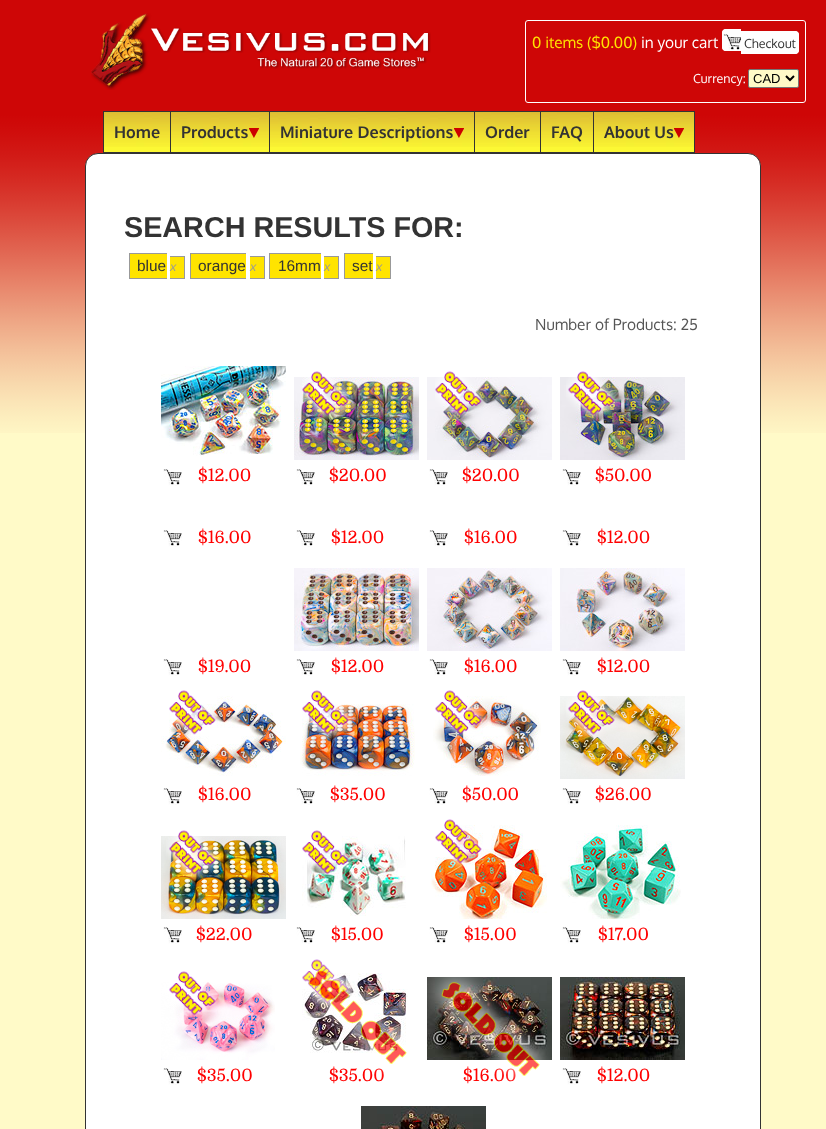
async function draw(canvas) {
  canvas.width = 826
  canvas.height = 1129
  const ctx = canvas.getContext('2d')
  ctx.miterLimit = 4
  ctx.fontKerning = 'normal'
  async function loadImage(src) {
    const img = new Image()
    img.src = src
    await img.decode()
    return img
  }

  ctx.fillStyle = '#fffac8'
  ctx.fillRect(0, 0, 826, 1129)
  ctx.drawImage(await loadImage('image0.png'), 0, 0, 826, 433)
  ctx.drawImage(await loadImage('image1.png'), 91, 13, 340, 77)
  ctx.beginPath()
  ctx.roundRect(525.5, 20.5, 280, 82, 2.5)
  ctx.strokeStyle = '#fff'
  ctx.stroke()
  ctx.font = '15.4px Oxygen'
  ctx.fillStyle = '#ffe400'
  ctx.fillText('0 items ($0.00)', 532, 48)
  ctx.fillStyle = '#fff'
  ctx.fillText('in your cart', 641, 48)
  ctx.beginPath()
  ctx.roundRect(722, 29, 19, 22, [4, 0, 0, 4])
  ctx.fill()
  ctx.drawImage(await loadImage('image2.png'), 723, 34, 18, 16)
  ctx.beginPath()
  ctx.roundRect(741, 31, 58, 23, [0, 4, 4, 0])
  ctx.fill()
  ctx.beginPath()
  ctx.moveTo(741, 31)
  ctx.lineTo(795, 31)
  ctx.bezierCurveTo(797, 31, 799, 33, 799, 35)
  ctx.lineTo(799, 50)
  ctx.bezierCurveTo(799, 52, 797, 54, 795, 54)
  ctx.lineTo(741, 54)
  ctx.closePath()
  ctx.moveTo(741, 32)
  ctx.lineTo(795, 32)
  ctx.bezierCurveTo(797, 32, 798, 33, 798, 35)
  ctx.lineTo(798, 50)
  ctx.bezierCurveTo(798, 52, 797, 53, 795, 53)
  ctx.lineTo(741, 53)
  ctx.closePath()
  ctx.fill('evenodd')
  ctx.font = '12.5px Oxygen'
  ctx.fillStyle = '#333'
  ctx.fillText('Checkout', 744, 48)
  ctx.fillStyle = '#fff'
  ctx.beginPath()
  ctx.moveTo(726, 29)
  ctx.lineTo(741, 29)
  ctx.lineTo(741, 51)
  ctx.lineTo(726, 51)
  ctx.bezierCurveTo(724, 51, 722, 49, 722, 47)
  ctx.lineTo(722, 33)
  ctx.bezierCurveTo(722, 31, 724, 29, 726, 29)
  ctx.closePath()
  ctx.moveTo(726, 30)
  ctx.lineTo(741, 30)
  ctx.lineTo(741, 50)
  ctx.lineTo(726, 50)
  ctx.bezierCurveTo(724.5, 50, 723, 48.5, 723, 47)
  ctx.lineTo(723, 33)
  ctx.bezierCurveTo(723, 31.5, 724.5, 30, 726, 30)
  ctx.closePath()
  ctx.fill('evenodd')
  ctx.fillText('Currency:', 693, 83)
  ctx.fillStyle = '#fffac8'
  ctx.beginPath()
  ctx.roundRect(748.5, 69.5, 50, 18, 1.5)
  ctx.fill()
  ctx.strokeStyle = '#767676'
  ctx.stroke()
  ctx.beginPath()
  ctx.moveTo(786, 76)
  ctx.lineTo(790, 80)
  ctx.lineTo(794, 76)
  ctx.strokeStyle = '#000'
  ctx.lineWidth = 2
  ctx.stroke()
  ctx.font = '13px Liberation Sans'
  ctx.fillStyle = '#000'
  ctx.fillText('CAD', 753, 83)
  ctx.fillStyle = '#fcf834'
  ctx.fillRect(104, 147, 66, 5)
  ctx.drawImage(await loadImage('image3.png'), 104, 112, 66, 35)
  ctx.strokeStyle = '#333'
  ctx.lineWidth = 1
  ctx.strokeRect(103.5, 111.5, 67, 41)
  ctx.font = 'bold 16.25px Oxygen'
  ctx.fillStyle = '#333'
  ctx.fillText('Home', 114, 138)
  ctx.fillStyle = '#fcf834'
  ctx.fillRect(171, 147, 98, 5)
  ctx.drawImage(await loadImage('image4.png'), 171, 112, 98, 35)
  ctx.strokeRect(170.5, 111.5, 99, 41)
  ctx.fillStyle = '#333'
  ctx.fillText('Products', 181, 138)
  ctx.drawImage(await loadImage('image5.png'), 249, 128, 10, 10)
  ctx.fillStyle = '#fcf834'
  ctx.fillRect(270, 147, 204, 5)
  ctx.drawImage(await loadImage('image6.png'), 270, 112, 204, 35)
  ctx.strokeRect(269.5, 111.5, 205, 41)
  ctx.fillStyle = '#333'
  ctx.fillText('Miniature Descriptions', 280, 138)
  ctx.drawImage(await loadImage('image7.png'), 454, 128, 10, 10)
  ctx.fillStyle = '#fcf834'
  ctx.fillRect(475, 147, 65, 5)
  ctx.drawImage(await loadImage('image8.png'), 475, 112, 65, 35)
  ctx.strokeRect(474.5, 111.5, 66, 41)
  ctx.fillStyle = '#333'
  ctx.fillText('Order', 485, 138)
  ctx.fillStyle = '#fcf834'
  ctx.fillRect(541, 147, 52, 5)
  ctx.drawImage(await loadImage('image9.png'), 541, 112, 52, 35)
  ctx.strokeRect(540.5, 111.5, 53, 41)
  ctx.fillStyle = '#333'
  ctx.fillText('FAQ', 551, 138)
  ctx.fillStyle = '#fcf834'
  ctx.fillRect(594, 147, 100, 5)
  ctx.drawImage(await loadImage('image10.png'), 594, 112, 100, 35)
  ctx.strokeRect(593.5, 111.5, 101, 41)
  ctx.fillStyle = '#333'
  ctx.fillText('About Us', 604, 138)
  ctx.drawImage(await loadImage('image11.png'), 674, 128, 10, 10)
  ctx.fillStyle = '#fff'
  ctx.beginPath()
  ctx.roundRect(85.5, 153.5, 675, 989, 12.5)
  ctx.fill()
  ctx.stroke()
  ctx.font = 'bold 28.75px Liberation Sans'
  ctx.fillStyle = '#333'
  ctx.fillText('SEARCH RESULTS FOR:', 124, 237)
  ctx.fillStyle = '#ffe400'
  ctx.fillRect(130, 254, 37, 24)
  ctx.font = '15.4px Liberation Sans'
  ctx.fillStyle = '#333'
  ctx.fillText('blue', 137, 271)
  ctx.fillStyle = '#999'
  ctx.fillRect(129, 253, 38, 1)
  ctx.fillRect(129, 278, 38, 1)
  ctx.fillRect(129, 253, 1, 26)
  ctx.fillRect(170, 256, 15, 1)
  ctx.fillStyle = '#ffe400'
  ctx.fillRect(170, 257, 14, 21)
  ctx.font = 'italic 12.5px Liberation Sans'
  ctx.fillStyle = '#999'
  ctx.fillText('x', 170, 271)
  ctx.fillRect(184, 256, 1, 23)
  ctx.fillRect(170, 278, 15, 1)
  ctx.fillStyle = '#ffe400'
  ctx.fillRect(191, 254, 55, 24)
  ctx.font = '15.4px Liberation Sans'
  ctx.fillStyle = '#333'
  ctx.fillText('orange', 198, 271)
  ctx.fillStyle = '#999'
  ctx.fillRect(190, 253, 56, 1)
  ctx.fillRect(190, 278, 56, 1)
  ctx.fillRect(190, 253, 1, 26)
  ctx.fillStyle = '#ffe400'
  ctx.fillRect(250, 257, 14, 21)
  ctx.font = 'italic 12.5px Liberation Sans'
  ctx.fillStyle = '#999'
  ctx.fillText('x', 250, 271)
  ctx.fillRect(250, 256, 15, 1)
  ctx.fillRect(264, 256, 1, 23)
  ctx.fillRect(250, 278, 15, 1)
  ctx.fillStyle = '#ffe400'
  ctx.fillRect(270, 254, 51, 24)
  ctx.font = '15.4px Liberation Sans'
  ctx.fillStyle = '#333'
  ctx.fillText('16mm', 278, 271)
  ctx.fillStyle = '#999'
  ctx.fillRect(269, 253, 52, 1)
  ctx.fillRect(269, 278, 52, 1)
  ctx.fillRect(269, 253, 1, 26)
  ctx.fillStyle = '#ffe400'
  ctx.fillRect(324, 257, 14, 21)
  ctx.font = 'italic 12.5px Liberation Sans'
  ctx.fillStyle = '#999'
  ctx.fillText('x', 324, 271)
  ctx.fillRect(324, 256, 15, 1)
  ctx.fillRect(338, 256, 1, 23)
  ctx.fillRect(324, 278, 15, 1)
  ctx.fillStyle = '#ffe400'
  ctx.fillRect(345, 254, 28, 24)
  ctx.font = '15.4px Liberation Sans'
  ctx.fillStyle = '#333'
  ctx.fillText('set', 352, 271)
  ctx.fillStyle = '#999'
  ctx.fillRect(344, 253, 29, 1)
  ctx.fillRect(344, 278, 29, 1)
  ctx.fillRect(344, 253, 1, 26)
  ctx.fillStyle = '#ffe400'
  ctx.fillRect(376, 257, 14, 21)
  ctx.font = 'italic 12.5px Liberation Sans'
  ctx.fillStyle = '#999'
  ctx.fillText('x', 376, 271)
  ctx.fillRect(376, 256, 15, 1)
  ctx.fillRect(390, 256, 1, 23)
  ctx.fillRect(376, 278, 15, 1)
  ctx.font = '15.4px Oxygen'
  ctx.fillStyle = '#555'
  ctx.fillText('Number of Products: 25', 535, 330)
  ctx.drawImage(await loadImage('image12.png'), 161, 366, 125, 90)
  ctx.drawImage(await loadImage('image13.png'), 163, 469, 19, 17)
  ctx.font = '17px Domine'
  ctx.fillStyle = '#f00'
  ctx.fillText('$12.00', 198, 481)
  ctx.drawImage(await loadImage('image15.png'), 294, 377, 125, 83)
  ctx.drawImage(await loadImage('image14.png'), 302, 371, 52, 51)
  ctx.drawImage(await loadImage('image13.png'), 296, 469, 19, 17)
  ctx.fillText('$20.00', 329, 481)
  ctx.drawImage(await loadImage('image17.png'), 427, 377, 125, 83)
  ctx.drawImage(await loadImage('image16.png'), 435, 371, 52, 51)
  ctx.drawImage(await loadImage('image13.png'), 429, 469, 19, 17)
  ctx.fillText('$20.00', 462, 481)
  ctx.drawImage(await loadImage('image19.png'), 560, 377, 125, 83)
  ctx.drawImage(await loadImage('image18.png'), 566, 371, 54, 51)
  ctx.drawImage(await loadImage('image13.png'), 562, 469, 19, 17)
  ctx.fillText('$50.00', 595, 481)
  ctx.drawImage(await loadImage('image13.png'), 163, 530, 19, 17)
  ctx.fillText('$16.00', 198, 543)
  ctx.drawImage(await loadImage('image13.png'), 296, 530, 19, 17)
  ctx.fillText('$12.00', 331, 543)
  ctx.drawImage(await loadImage('image13.png'), 429, 530, 19, 17)
  ctx.fillText('$16.00', 464, 543)
  ctx.drawImage(await loadImage('image13.png'), 562, 530, 19, 17)
  ctx.fillText('$12.00', 597, 543)
  ctx.drawImage(await loadImage('image13.png'), 163, 659, 19, 17)
  ctx.fillText('$19.00', 198, 672)
  ctx.drawImage(await loadImage('image20.png'), 294, 568, 125, 83)
  ctx.drawImage(await loadImage('image13.png'), 296, 659, 19, 17)
  ctx.fillText('$12.00', 331, 672)
  ctx.drawImage(await loadImage('image21.png'), 427, 568, 125, 83)
  ctx.drawImage(await loadImage('image13.png'), 429, 659, 19, 17)
  ctx.fillText('$16.00', 464, 672)
  ctx.drawImage(await loadImage('image22.png'), 560, 568, 125, 83)
  ctx.drawImage(await loadImage('image13.png'), 562, 659, 19, 17)
  ctx.fillText('$12.00', 597, 672)
  ctx.drawImage(await loadImage('image24.png'), 161, 696, 125, 80)
  ctx.drawImage(await loadImage('image23.png'), 169, 690, 52, 51)
  ctx.drawImage(await loadImage('image13.png'), 163, 788, 19, 17)
  ctx.fillText('$16.00', 198, 800)
  ctx.drawImage(await loadImage('image26.png'), 300, 704, 115, 72)
  ctx.drawImage(await loadImage('image25.png'), 302, 690, 52, 51)
  ctx.drawImage(await loadImage('image13.png'), 296, 788, 19, 17)
  ctx.fillText('$35.00', 330, 800)
  ctx.drawImage(await loadImage('image28.png'), 433, 696, 108, 80)
  ctx.drawImage(await loadImage('image27.png'), 435, 690, 52, 51)
  ctx.drawImage(await loadImage('image13.png'), 429, 788, 19, 17)
  ctx.fillText('$50.00', 462, 800)
  ctx.drawImage(await loadImage('image30.png'), 560, 696, 125, 83)
  ctx.drawImage(await loadImage('image29.png'), 566, 690, 54, 51)
  ctx.drawImage(await loadImage('image13.png'), 562, 788, 19, 17)
  ctx.fillText('$26.00', 595, 800)
  ctx.drawImage(await loadImage('image32.png'), 161, 836, 125, 83)
  ctx.drawImage(await loadImage('image31.png'), 166, 830, 55, 51)
  ctx.drawImage(await loadImage('image13.png'), 163, 927, 19, 17)
  ctx.fillText('$22.00', 196, 940)
  ctx.drawImage(await loadImage('image34.png'), 302, 836, 104, 80)
  ctx.drawImage(await loadImage('image33.png'), 302, 830, 52, 51)
  ctx.drawImage(await loadImage('image13.png'), 296, 927, 19, 17)
  ctx.fillText('$15.00', 331, 940)
  ctx.drawImage(await loadImage('image36.png'), 431, 825, 116, 94)
  ctx.drawImage(await loadImage('image35.png'), 435, 819, 52, 51)
  ctx.drawImage(await loadImage('image13.png'), 429, 927, 19, 17)
  ctx.fillText('$15.00', 464, 940)
  ctx.drawImage(await loadImage('image37.png'), 560, 825, 121, 94)
  ctx.drawImage(await loadImage('image13.png'), 562, 927, 19, 17)
  ctx.fillText('$17.00', 598, 940)
  ctx.drawImage(await loadImage('image39.png'), 161, 982, 114, 78)
  ctx.drawImage(await loadImage('image38.png'), 169, 971, 52, 51)
  ctx.drawImage(await loadImage('image13.png'), 163, 1068, 19, 17)
  ctx.fillText('$35.00', 197, 1081)
  ctx.drawImage(await loadImage('image42.png'), 302, 973, 106, 80)
  ctx.drawImage(await loadImage('image40.png'), 302, 959, 52, 51)
  ctx.fillText('$35.00', 329, 1081)
  ctx.drawImage(await loadImage('image41.png'), 302, 959, 105, 121)
  ctx.drawImage(await loadImage('image43.png'), 427, 977, 125, 83)
  ctx.fillText('$16.00', 463, 1081)
  ctx.drawImage(await loadImage('image44.png'), 427, 977, 125, 104)
  ctx.drawImage(await loadImage('image45.png'), 560, 977, 125, 83)
  ctx.drawImage(await loadImage('image13.png'), 562, 1068, 19, 17)
  ctx.fillText('$12.00', 597, 1081)
  ctx.drawImage(await loadImage('image46.png'), 361, 1106, 125, 23)
}

draw(document.querySelector('canvas'))
